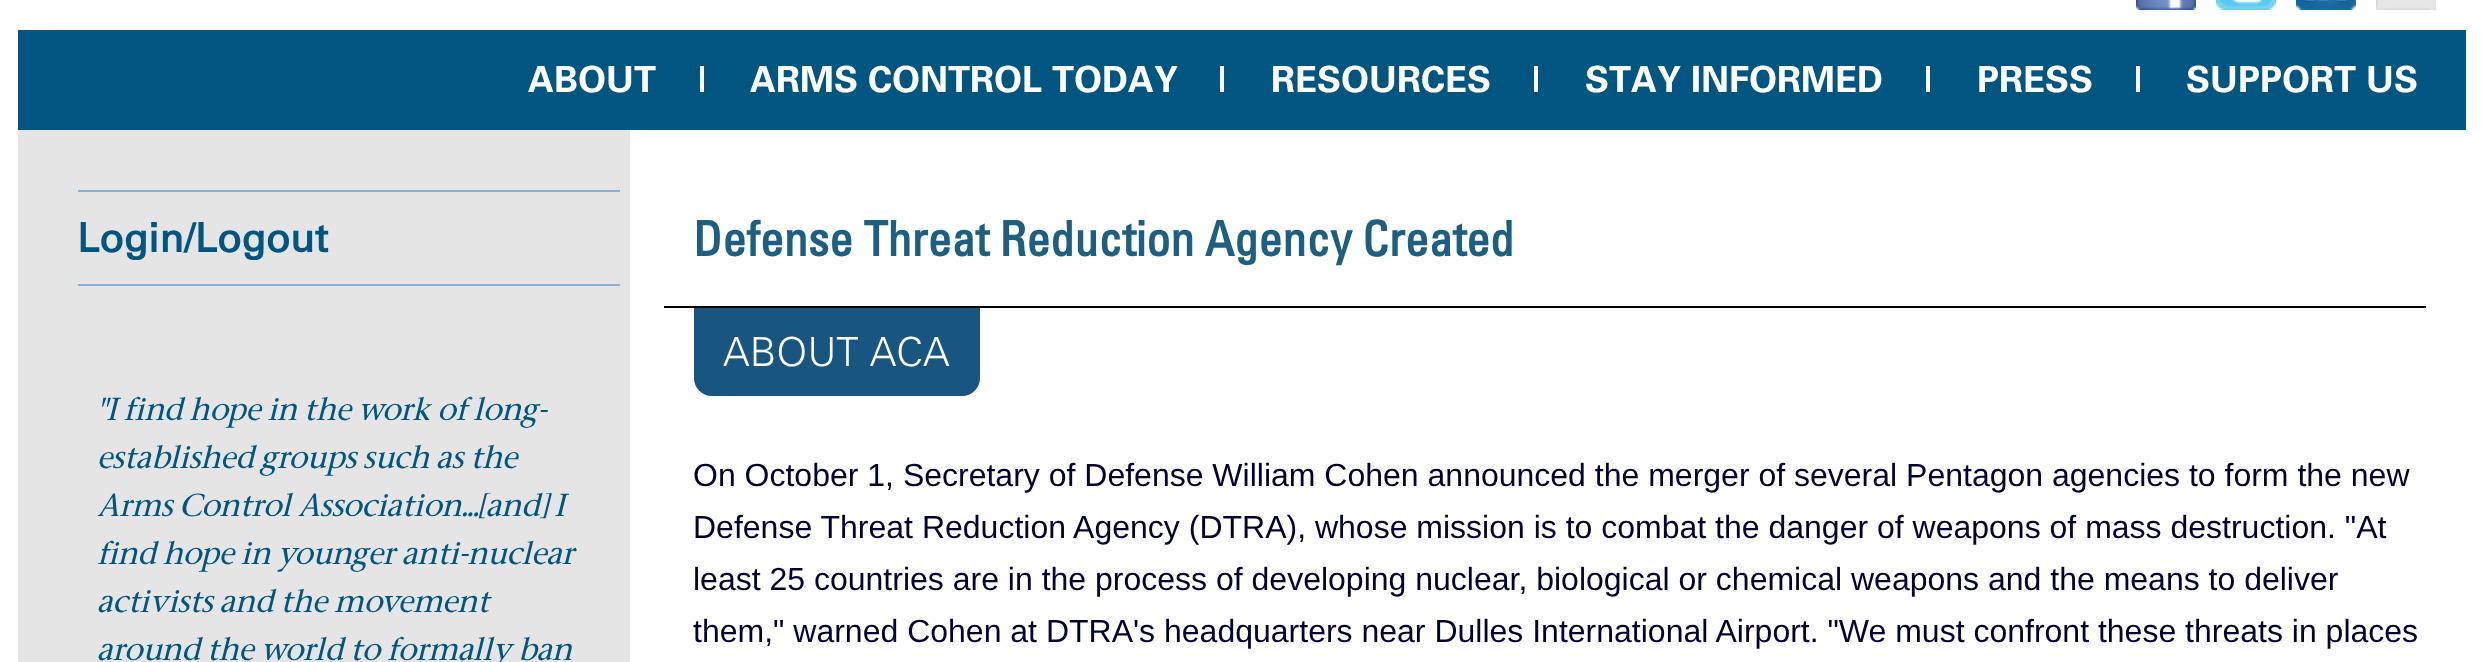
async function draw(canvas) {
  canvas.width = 2482
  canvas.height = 662
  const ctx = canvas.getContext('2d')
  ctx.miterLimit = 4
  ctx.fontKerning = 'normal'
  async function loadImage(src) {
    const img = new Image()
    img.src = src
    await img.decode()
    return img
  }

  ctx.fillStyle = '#fff'
  ctx.fillRect(0, 0, 2482, 662)
  ctx.drawImage(await loadImage('image0.png'), 2136, 0, 60, 10)
  ctx.drawImage(await loadImage('image1.png'), 2216, 0, 60, 10)
  ctx.drawImage(await loadImage('image2.png'), 2296, 0, 60, 10)
  ctx.drawImage(await loadImage('image3.png'), 2376, 0, 60, 10)
  ctx.fillStyle = '#005581'
  ctx.fillRect(18, 30, 2448, 100)
  ctx.fillStyle = '#fefefe'
  ctx.fillRect(700, 66, 4, 26)
  ctx.font = 'bold 36px "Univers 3"'
  ctx.fillStyle = '#fff'
  ctx.fillText('ABOUT', 528, 92)
  ctx.fillStyle = '#fefefe'
  ctx.fillRect(1220, 66, 4, 26)
  ctx.fillStyle = '#fff'
  ctx.fillText('ARMS CONTROL TODAY', 750, 92)
  ctx.fillStyle = '#fefefe'
  ctx.fillRect(1534, 66, 4, 26)
  ctx.fillStyle = '#fff'
  ctx.fillText('RESOURCES', 1271, 92)
  ctx.fillStyle = '#fefefe'
  ctx.fillRect(1926, 66, 4, 26)
  ctx.fillStyle = '#fff'
  ctx.fillText('STAY INFORMED', 1585, 92)
  ctx.fillStyle = '#fefefe'
  ctx.fillRect(2136, 66, 4, 26)
  ctx.fillStyle = '#fff'
  ctx.fillText('PRESS', 1977, 92)
  ctx.fillText('SUPPORT US', 2186, 92)
  ctx.fillStyle = '#e5e5e5'
  ctx.fillRect(18, 130, 612, 532)
  ctx.fillStyle = '#8faecf'
  ctx.fillRect(78, 284, 542, 2)
  ctx.fillRect(78, 190, 542, 2)
  ctx.font = 'bold 40px Univers'
  ctx.fillStyle = '#005581'
  ctx.fillText('Login/Logout', 77, 252)
  ctx.font = 'italic 500 30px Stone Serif'
  ctx.fillText('"I find hope in the work of long-', 97, 420)
  ctx.fillText('established groups such as the', 97, 468)
  ctx.fillText('Arms Control Association...[and] I', 97, 516)
  ctx.fillText('find hope in younger anti-nuclear', 97, 564)
  ctx.fillText('activists and the movement', 97, 612)
  ctx.fillText('around the world to formally ban', 97, 660)
  ctx.fillStyle = '#000'
  ctx.fillRect(664, 306, 1762, 2)
  ctx.font = 'bold 48px "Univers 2"'
  ctx.fillStyle = '#1c5f81'
  ctx.fillText('Defense Threat Reduction Agency Created', 693, 256)
  ctx.fillStyle = '#195581'
  ctx.beginPath()
  ctx.roundRect(694, 308, 286, 88, [0, 0, 18, 18])
  ctx.fill()
  ctx.font = '300 40px Univers'
  ctx.fillStyle = '#fff'
  ctx.fillText('ABOUT ACA', 723, 366)
  ctx.font = '32px Liberation Sans'
  ctx.fillStyle = '#000230'
  ctx.fillText('On October 1, Secretary of Defense William Cohen announced the merger of several Pentagon agencies to form the new', 693, 486)
  ctx.fillText('Defense Threat Reduction Agency (DTRA), whose mission is to combat the danger of weapons of mass destruction. "At', 693, 538)
  ctx.fillText('least 25 countries are in the process of developing nuclear, biological or chemical weapons and the means to deliver', 693, 590)
  ctx.fillText('them," warned Cohen at DTRA\'s headquarters near Dulles International Airport. "We must confront these threats in places', 693, 642)
}

draw(document.querySelector('canvas'))
